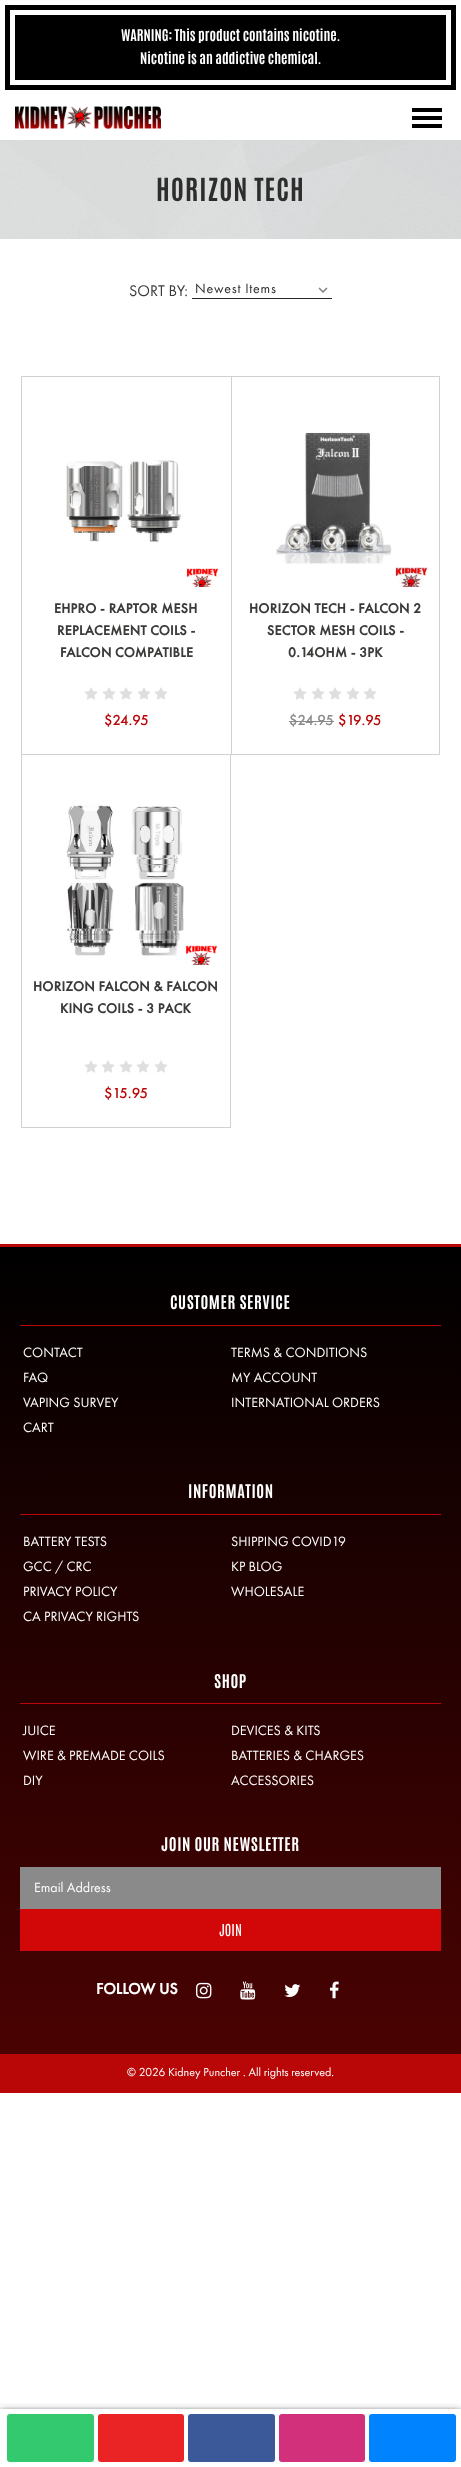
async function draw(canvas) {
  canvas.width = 461
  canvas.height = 2467
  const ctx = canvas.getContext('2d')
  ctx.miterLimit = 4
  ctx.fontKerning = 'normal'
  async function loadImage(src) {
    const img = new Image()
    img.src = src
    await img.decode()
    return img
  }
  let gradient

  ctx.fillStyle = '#fff'
  ctx.fillRect(0, 0, 461, 2467)
  ctx.fillStyle = '#000'
  ctx.fillRect(5, 5, 451, 85)
  ctx.strokeStyle = '#fff'
  ctx.lineWidth = 5
  ctx.strokeRect(12.5, 12.5, 436, 70)
  ctx.font = 'bold 13.8px Antonio'
  ctx.fillStyle = '#fff'
  ctx.fillText('WARNING: This product contains nicotine.', 121, 41)
  ctx.fillText('Nicotine is an addictive chemical.', 140, 64)
  ctx.drawImage(await loadImage('image0.png'), 15, 106, 146, 23)
  ctx.fillStyle = '#000'
  ctx.fillRect(412, 108, 30, 4)
  ctx.fillRect(412, 116, 30, 4)
  ctx.fillRect(412, 124, 30, 4)
  ctx.drawImage(await loadImage('image1.png'), 0, 140, 461, 99)
  ctx.letterSpacing = '1px'
  ctx.font = 'bold 27px Antonio'
  ctx.fillStyle = '#2d2d2d'
  ctx.fillText('HORIZON TECH', 156, 201)
  ctx.letterSpacing = '0px'
  ctx.font = '16px Futura PT'
  ctx.fillStyle = '#3b3a39'
  ctx.fillText('SORT BY:', 129, 296)
  ctx.drawImage(await loadImage('image2.png'), 318, 287, 10, 6)
  ctx.fillStyle = '#272726'
  ctx.fillRect(192, 298, 140, 1)
  ctx.letterSpacing = '0.75px'
  ctx.font = '14px Futura PT'
  ctx.fillStyle = '#2d2d2d'
  ctx.fillText('Newest Items', 195, 293)
  ctx.fillStyle = '#d1d1d1'
  ctx.fillRect(21, 376, 210, 1)
  ctx.fillRect(21, 754, 210, 1)
  ctx.fillRect(21, 376, 1, 379)
  ctx.drawImage(await loadImage('image3.png'), 66, 460, 153, 127)
  ctx.letterSpacing = '0.25px'
  ctx.font = 'bold 14px Futura PT'
  ctx.fillStyle = '#3b3a39'
  ctx.fillText('EHPRO - RAPTOR MESH', 54, 613)
  ctx.fillText('REPLACEMENT COILS -', 57, 635)
  ctx.fillText('FALCON COMPATIBLE', 60, 657)
  ctx.drawImage(await loadImage('image4.png'), 84, 687, 14, 13)
  ctx.drawImage(await loadImage('image4.png'), 102, 687, 14, 13)
  ctx.drawImage(await loadImage('image4.png'), 119, 687, 14, 13)
  ctx.drawImage(await loadImage('image4.png'), 137, 687, 14, 13)
  ctx.drawImage(await loadImage('image4.png'), 154, 687, 14, 13)
  ctx.letterSpacing = '0px'
  ctx.font = '500 15px Futura PT'
  ctx.fillStyle = '#b90606'
  ctx.fillText('$24.95', 104, 725)
  ctx.strokeStyle = '#d1d1d1'
  ctx.lineWidth = 1
  ctx.strokeRect(231.5, 376.5, 208, 378)
  ctx.drawImage(await loadImage('image5.png'), 276, 432, 153, 155)
  ctx.letterSpacing = '0.25px'
  ctx.font = 'bold 14px Futura PT'
  ctx.fillStyle = '#3b3a39'
  ctx.fillText('HORIZON TECH - FALCON 2', 249, 613)
  ctx.fillText('SECTOR MESH COILS -', 267, 635)
  ctx.fillText('0.14OHM - 3PK', 288, 657)
  ctx.drawImage(await loadImage('image4.png'), 293, 687, 14, 13)
  ctx.drawImage(await loadImage('image4.png'), 311, 687, 14, 13)
  ctx.drawImage(await loadImage('image4.png'), 328, 687, 14, 13)
  ctx.drawImage(await loadImage('image4.png'), 346, 687, 14, 13)
  ctx.drawImage(await loadImage('image4.png'), 363, 687, 14, 13)
  ctx.letterSpacing = '0px'
  ctx.font = '500 15px Futura PT'
  ctx.fillStyle = '#8a8a8a'
  ctx.fillText('$24.95', 289, 725)
  ctx.fillRect(289, 721, 45, 1)
  ctx.fillStyle = '#b90606'
  ctx.fillText('$19.95', 338, 725)
  ctx.fillStyle = '#d1d1d1'
  ctx.fillRect(230, 755, 1, 373)
  ctx.fillRect(21, 1127, 210, 1)
  ctx.fillRect(21, 755, 1, 373)
  ctx.drawImage(await loadImage('image6.png'), 66, 805, 152, 160)
  ctx.letterSpacing = '0.25px'
  ctx.font = 'bold 14px Futura PT'
  ctx.fillStyle = '#3b3a39'
  ctx.fillText('HORIZON FALCON & FALCON', 33, 991)
  ctx.fillText('KING COILS - 3 PACK', 60, 1013)
  ctx.drawImage(await loadImage('image4.png'), 84, 1060, 14, 13)
  ctx.drawImage(await loadImage('image4.png'), 101, 1060, 14, 13)
  ctx.drawImage(await loadImage('image4.png'), 119, 1060, 14, 13)
  ctx.drawImage(await loadImage('image4.png'), 136, 1060, 14, 13)
  ctx.drawImage(await loadImage('image4.png'), 154, 1060, 14, 13)
  ctx.letterSpacing = '0px'
  ctx.font = '500 15px Futura PT'
  ctx.fillStyle = '#b90606'
  ctx.fillText('$15.95', 104, 1098)
  ctx.fillRect(0, 1244, 461, 3)
  gradient = ctx.createLinearGradient(230, 1247, 231, 2054)
  gradient.addColorStop(0, '#000')
  gradient.addColorStop(1, '#4a0202')
  ctx.fillStyle = gradient
  ctx.fillRect(0, 1247, 461, 807)
  ctx.fillStyle = '#b90606'
  ctx.fillRect(20, 1325, 421, 1)
  ctx.letterSpacing = '0.6px'
  ctx.font = 'bold 16px Antonio'
  ctx.fillStyle = '#fff'
  ctx.fillText('CUSTOMER SERVICE', 170, 1309)
  ctx.letterSpacing = '0px'
  ctx.font = '14px Futura PT'
  ctx.fillText('CONTACT', 23, 1357)
  ctx.fillText('TERMS & CONDITIONS', 231, 1357)
  ctx.fillText('FAQ', 23, 1382)
  ctx.fillText('MY ACCOUNT', 231, 1382)
  ctx.fillText('VAPING SURVEY', 23, 1407)
  ctx.fillText('INTERNATIONAL ORDERS', 231, 1407)
  ctx.fillText('CART', 23, 1432)
  ctx.fillStyle = '#b90606'
  ctx.fillRect(20, 1514, 421, 1)
  ctx.letterSpacing = '0.6px'
  ctx.font = 'bold 16px Antonio'
  ctx.fillStyle = '#fff'
  ctx.fillText('INFORMATION', 188, 1498)
  ctx.letterSpacing = '0px'
  ctx.font = '14px Futura PT'
  ctx.fillText('BATTERY TESTS', 23, 1546)
  ctx.fillText('SHIPPING COVID19', 231, 1546)
  ctx.fillText('GCC / CRC', 23, 1571)
  ctx.fillText('KP BLOG', 231, 1571)
  ctx.fillText('PRIVACY POLICY', 23, 1596)
  ctx.fillText('WHOLESALE', 231, 1596)
  ctx.fillText('CA PRIVACY RIGHTS', 23, 1621)
  ctx.fillStyle = '#b90606'
  ctx.fillRect(20, 1703, 421, 1)
  ctx.letterSpacing = '0.6px'
  ctx.font = 'bold 16px Antonio'
  ctx.fillStyle = '#fff'
  ctx.fillText('SHOP', 214, 1688)
  ctx.letterSpacing = '0px'
  ctx.font = '14px Futura PT'
  ctx.fillText('JUICE', 23, 1735)
  ctx.fillText('DEVICES & KITS', 231, 1735)
  ctx.fillText('WIRE & PREMADE COILS', 23, 1760)
  ctx.fillText('BATTERIES & CHARGES', 231, 1760)
  ctx.fillText('DIY', 23, 1785)
  ctx.fillText('ACCESSORIES', 231, 1785)
  ctx.letterSpacing = '0.6px'
  ctx.font = 'bold 16px Antonio'
  ctx.fillText('JOIN OUR NEWSLETTER', 161, 1851)
  ctx.fillStyle = '#8a8a8a'
  ctx.fillRect(20, 1867, 421, 42)
  ctx.letterSpacing = '0px'
  ctx.font = '14px Futura PT'
  ctx.fillStyle = '#fff'
  ctx.fillText('Email Address', 34, 1892)
  ctx.fillStyle = '#d20707'
  ctx.fillRect(20, 1909, 421, 42)
  ctx.font = '14px Antonio'
  ctx.fillStyle = '#fff'
  ctx.fillText('JOIN', 219, 1936)
  ctx.font = 'bold 16px Futura PT'
  ctx.fillText('FOLLOW US', 96, 1994)
  ctx.drawImage(await loadImage('image7.png'), 196, 1982, 16, 17)
  ctx.drawImage(await loadImage('image8.png'), 240, 1981, 16, 19)
  ctx.drawImage(await loadImage('image9.png'), 284, 1984, 17, 13)
  ctx.drawImage(await loadImage('image10.png'), 329, 1981, 10, 18)
  ctx.fillStyle = '#b90606'
  ctx.fillRect(0, 2054, 461, 39)
  ctx.font = '12px Futura PT'
  ctx.fillStyle = '#fff'
  ctx.fillText('© 2026 Kidney Puncher . All rights reserved.', 127, 2076)
  ctx.save()
  ctx.beginPath()
  ctx.rect(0, 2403, 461, 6)
  ctx.clip()
  ctx.fillStyle = '#0000006b'
  ctx.filter = 'blur(5px)'
  ctx.beginPath()
  ctx.rect(0, 2411, 461, 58)
  ctx.fill()
  ctx.filter = 'none'
  ctx.restore()
  ctx.save()
  ctx.beginPath()
  ctx.rect(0, 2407, 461, 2)
  ctx.clip()
  ctx.fillStyle = '#00000075'
  ctx.filter = 'blur(2.5px)'
  ctx.beginPath()
  ctx.rect(0, 2411, 461, 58)
  ctx.fill()
  ctx.filter = 'none'
  ctx.restore()
  ctx.drawImage(await loadImage('image11.png'), 7, 2414, 449, 48)
}

draw(document.querySelector('canvas'))
